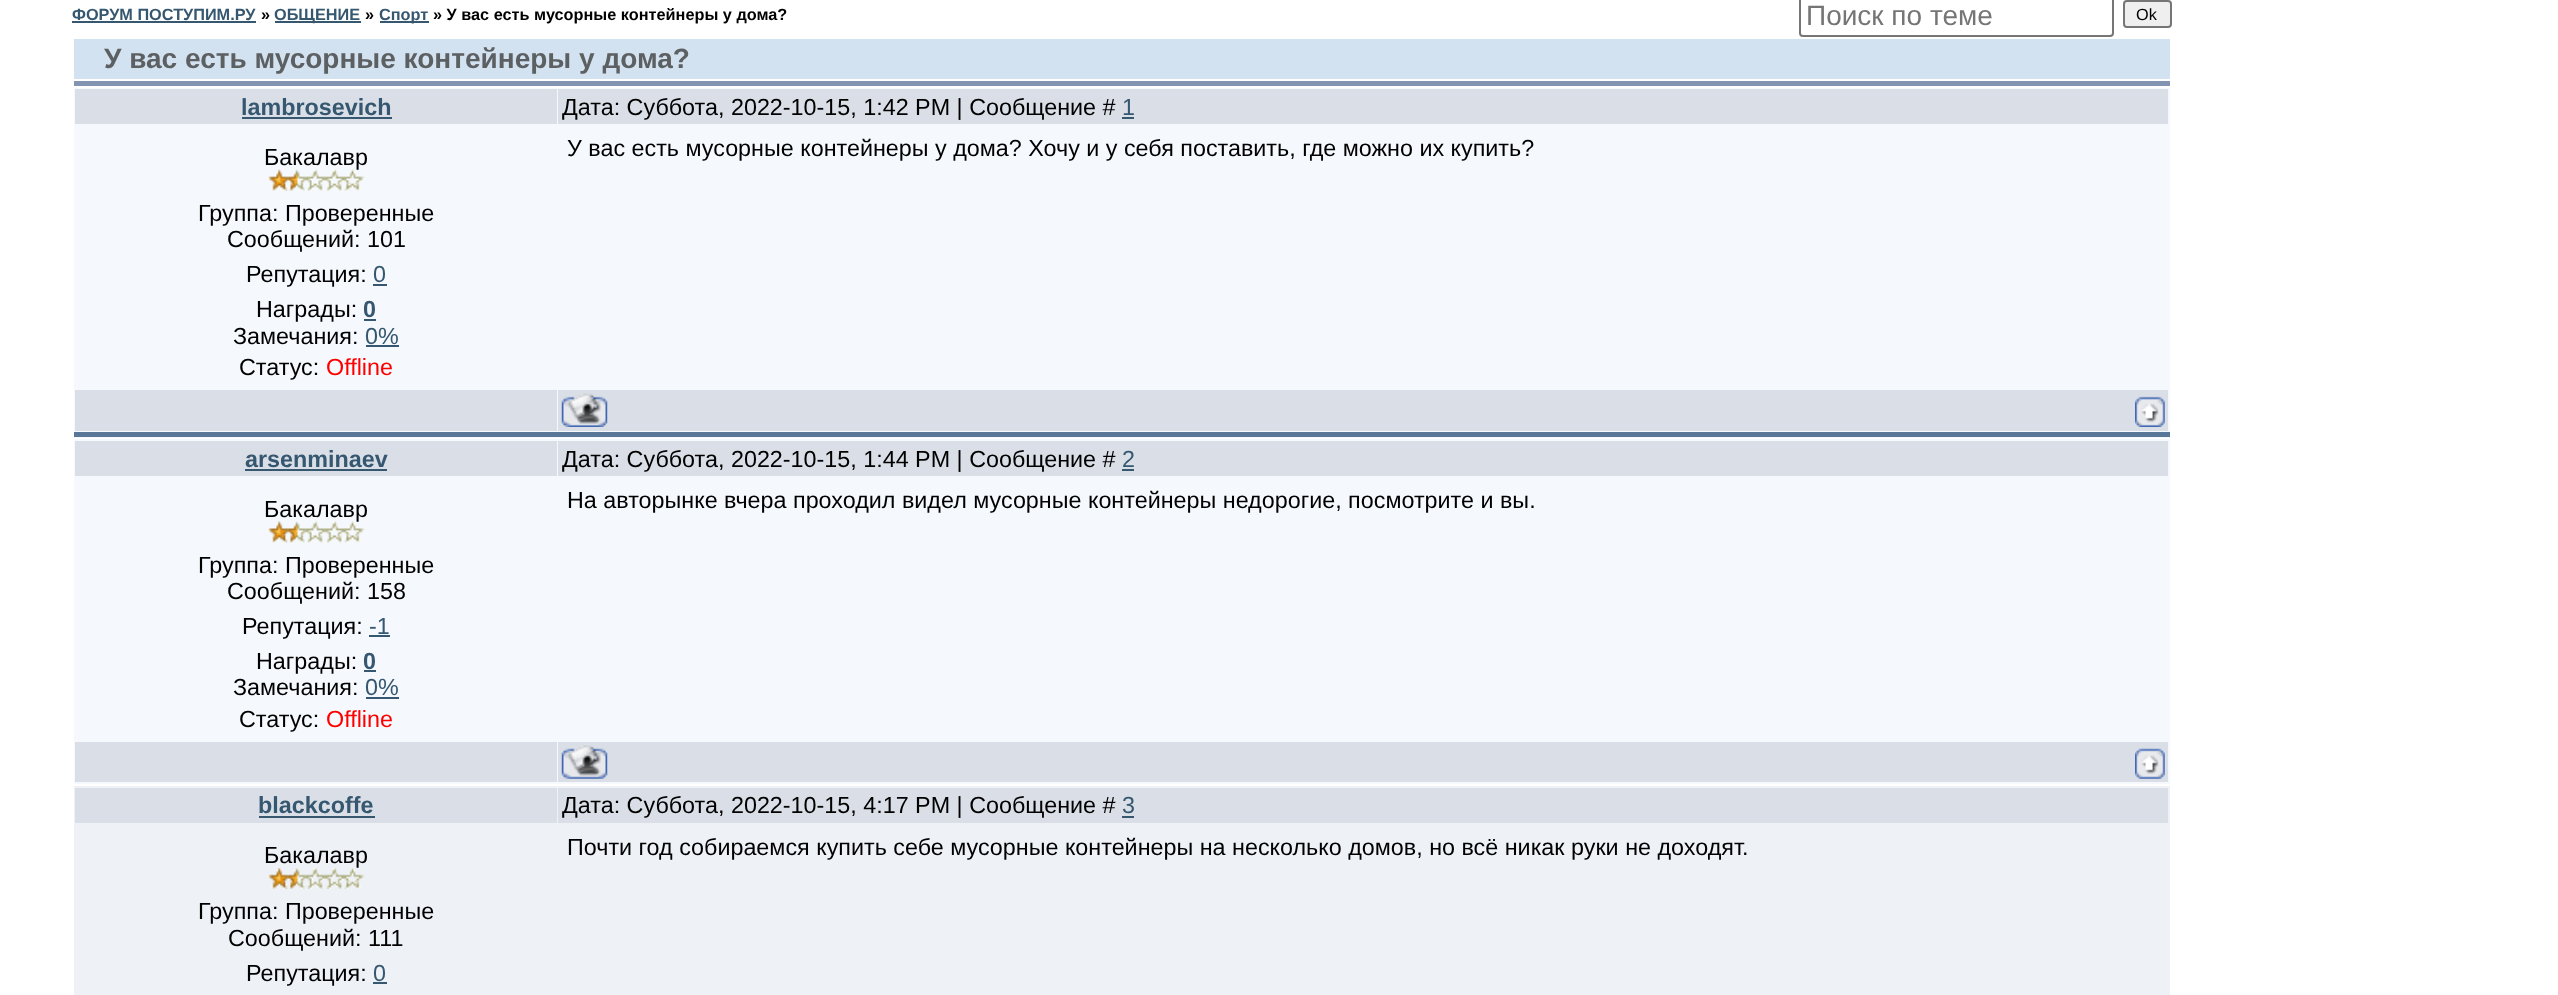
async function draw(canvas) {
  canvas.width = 2558
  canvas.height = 995
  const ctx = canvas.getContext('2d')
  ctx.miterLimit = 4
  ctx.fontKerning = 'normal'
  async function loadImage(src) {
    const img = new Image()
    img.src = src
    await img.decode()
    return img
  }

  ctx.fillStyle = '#fff'
  ctx.fillRect(0, 0, 2558, 995)
  ctx.font = 'bold 16.3px Liberation Sans'
  ctx.fillStyle = '#365770'
  ctx.fillText('ФОРУМ ПОСТУПИМ.РУ', 72, 20)
  ctx.fillRect(72, 21, 184, 2)
  ctx.fillStyle = '#000'
  ctx.fillText('»', 261, 20)
  ctx.fillStyle = '#365770'
  ctx.fillRect(275, 21, 86, 2)
  ctx.fillText('ОБЩЕНИЕ', 274, 20)
  ctx.fillStyle = '#000'
  ctx.fillText('»', 365, 20)
  ctx.fillStyle = '#365770'
  ctx.fillRect(380, 21, 49, 2)
  ctx.fillText('Спорт', 379, 20)
  ctx.fillStyle = '#000'
  ctx.fillText('» У вас есть мусорные контейнеры у дома?', 433, 20)
  ctx.beginPath()
  ctx.roundRect(1800, -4, 313, 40, 3)
  ctx.strokeStyle = '#767676'
  ctx.lineWidth = 2
  ctx.stroke()
  ctx.font = '28px Liberation Sans'
  ctx.fillStyle = '#757575'
  ctx.fillText('Поиск по теме', 1806, 25)
  ctx.fillStyle = '#efefef'
  ctx.beginPath()
  ctx.roundRect(2124, 1, 47, 26, 3)
  ctx.fill()
  ctx.stroke()
  ctx.font = '16.3px Liberation Sans'
  ctx.fillStyle = '#000'
  ctx.fillText('Ok', 2136, 20)
  ctx.fillStyle = '#d3e2f0'
  ctx.fillRect(74, 39, 2096, 40)
  ctx.font = 'bold 28px Liberation Sans'
  ctx.fillStyle = '#5d6062'
  ctx.fillText('У вас есть мусорные контейнеры у дома?', 104, 68)
  ctx.fillStyle = '#8394b2'
  ctx.fillRect(74, 81, 2096, 5)
  ctx.fillStyle = '#f5f9fd'
  ctx.fillRect(74, 88, 2096, 350)
  ctx.fillStyle = '#597798'
  ctx.fillRect(74, 432, 2096, 5)
  ctx.fillStyle = '#dadfe7'
  ctx.fillRect(75, 89, 482, 35)
  ctx.font = 'bold 23.33px Liberation Sans'
  ctx.fillStyle = '#365770'
  ctx.fillText('lambrosevich', 241, 115)
  ctx.fillRect(242, 117, 150, 2)
  ctx.fillStyle = '#dadfe7'
  ctx.fillRect(558, 89, 1610, 35)
  ctx.font = '23.33px Liberation Sans'
  ctx.fillStyle = '#000'
  ctx.fillText('Дата: Суббота, 2022-10-15, 1:42 PM | Сообщение #', 562, 115)
  ctx.fillStyle = '#365770'
  ctx.fillText('1', 1122, 115)
  ctx.fillRect(1122, 117, 12, 2)
  ctx.fillStyle = '#000'
  ctx.fillText('Бакалавр', 264, 165)
  ctx.drawImage(await loadImage('image0.png'), 267, 169, 98, 22)
  ctx.fillText('Группа: Проверенные', 198, 221)
  ctx.fillText('Сообщений: 101', 227, 247)
  ctx.fillText('Репутация:', 246, 282)
  ctx.fillStyle = '#365770'
  ctx.fillText('0', 373, 282)
  ctx.fillRect(373, 284, 14, 2)
  ctx.fillStyle = '#000'
  ctx.fillText('Награды:', 256, 317)
  ctx.font = 'bold 23.33px Liberation Sans'
  ctx.fillStyle = '#365770'
  ctx.fillText('0', 363, 317)
  ctx.fillRect(364, 319, 12, 2)
  ctx.font = '23.33px Liberation Sans'
  ctx.fillStyle = '#000'
  ctx.fillText('Замечания:', 233, 344)
  ctx.fillStyle = '#365770'
  ctx.fillText('0%', 365, 344)
  ctx.fillRect(366, 345, 33, 2)
  ctx.fillStyle = '#000'
  ctx.fillText('Статус:', 239, 375)
  ctx.fillStyle = '#f00'
  ctx.fillText('Offline', 326, 375)
  ctx.fillStyle = '#000'
  ctx.fillText('У вас есть мусорные контейнеры у дома? Хочу и у себя поставить, где можно их купить?', 567, 156)
  ctx.fillStyle = '#dadfe7'
  ctx.fillRect(75, 390, 482, 41)
  ctx.fillRect(558, 390, 1610, 41)
  ctx.drawImage(await loadImage('image1.png'), 561, 393, 47, 34)
  ctx.drawImage(await loadImage('image2.png'), 2135, 396, 30, 31)
  ctx.fillStyle = '#f5f9fd'
  ctx.fillRect(74, 439, 2096, 345)
  ctx.fillStyle = '#dadfe7'
  ctx.fillRect(75, 441, 482, 35)
  ctx.font = 'bold 23.33px Liberation Sans'
  ctx.fillStyle = '#365770'
  ctx.fillText('arsenminaev', 245, 467)
  ctx.fillRect(245, 469, 142, 2)
  ctx.fillStyle = '#dadfe7'
  ctx.fillRect(558, 441, 1610, 35)
  ctx.font = '23.33px Liberation Sans'
  ctx.fillStyle = '#000'
  ctx.fillText('Дата: Суббота, 2022-10-15, 1:44 PM | Сообщение #', 562, 467)
  ctx.fillStyle = '#365770'
  ctx.fillText('2', 1122, 467)
  ctx.fillRect(1122, 469, 12, 2)
  ctx.fillStyle = '#000'
  ctx.fillText('Бакалавр', 264, 517)
  ctx.drawImage(await loadImage('image3.png'), 267, 521, 98, 22)
  ctx.fillText('Группа: Проверенные', 198, 573)
  ctx.fillText('Сообщений: 158', 227, 599)
  ctx.fillText('Репутация:', 242, 634)
  ctx.fillStyle = '#365770'
  ctx.fillText('-1', 369, 634)
  ctx.fillRect(369, 635, 21, 2)
  ctx.fillStyle = '#000'
  ctx.fillText('Награды:', 256, 669)
  ctx.font = 'bold 23.33px Liberation Sans'
  ctx.fillStyle = '#365770'
  ctx.fillText('0', 363, 669)
  ctx.fillRect(364, 670, 12, 2)
  ctx.font = '23.33px Liberation Sans'
  ctx.fillStyle = '#000'
  ctx.fillText('Замечания:', 233, 695)
  ctx.fillStyle = '#365770'
  ctx.fillText('0%', 365, 695)
  ctx.fillRect(366, 697, 33, 2)
  ctx.fillStyle = '#000'
  ctx.fillText('Статус:', 239, 727)
  ctx.fillStyle = '#f00'
  ctx.fillText('Offline', 326, 727)
  ctx.fillStyle = '#000'
  ctx.fillText('На авторынке вчера проходил видел мусорные контейнеры недорогие, посмотрите и вы.', 567, 508)
  ctx.fillStyle = '#dadfe7'
  ctx.fillRect(75, 742, 482, 40)
  ctx.fillRect(558, 742, 1610, 40)
  ctx.drawImage(await loadImage('image4.png'), 561, 745, 47, 34)
  ctx.drawImage(await loadImage('image5.png'), 2135, 748, 30, 31)
  ctx.fillStyle = '#eef2f7'
  ctx.fillRect(74, 786, 2096, 209)
  ctx.fillStyle = '#dadfe7'
  ctx.fillRect(75, 788, 482, 35)
  ctx.font = 'bold 23.33px Liberation Sans'
  ctx.fillStyle = '#365770'
  ctx.fillText('blackcoffe', 258, 813)
  ctx.fillRect(259, 816, 116, 2)
  ctx.fillStyle = '#dadfe7'
  ctx.fillRect(558, 788, 1610, 35)
  ctx.font = '23.33px Liberation Sans'
  ctx.fillStyle = '#000'
  ctx.fillText('Дата: Суббота, 2022-10-15, 4:17 PM | Сообщение #', 562, 813)
  ctx.fillStyle = '#365770'
  ctx.fillText('3', 1122, 813)
  ctx.fillRect(1122, 816, 12, 2)
  ctx.fillStyle = '#000'
  ctx.fillText('Бакалавр', 264, 863)
  ctx.drawImage(await loadImage('image6.png'), 267, 868, 98, 21)
  ctx.fillText('Группа: Проверенные', 198, 919)
  ctx.fillText('Сообщений: 111', 228, 946)
  ctx.fillText('Репутация:', 246, 981)
  ctx.fillStyle = '#365770'
  ctx.fillText('0', 373, 981)
  ctx.fillRect(373, 982, 14, 2)
  ctx.fillStyle = '#000'
  ctx.fillText('Почти год собираемся купить себе мусорные контейнеры на несколько домов, но всё никак руки не доходят.', 567, 855)
}

draw(document.querySelector('canvas'))
